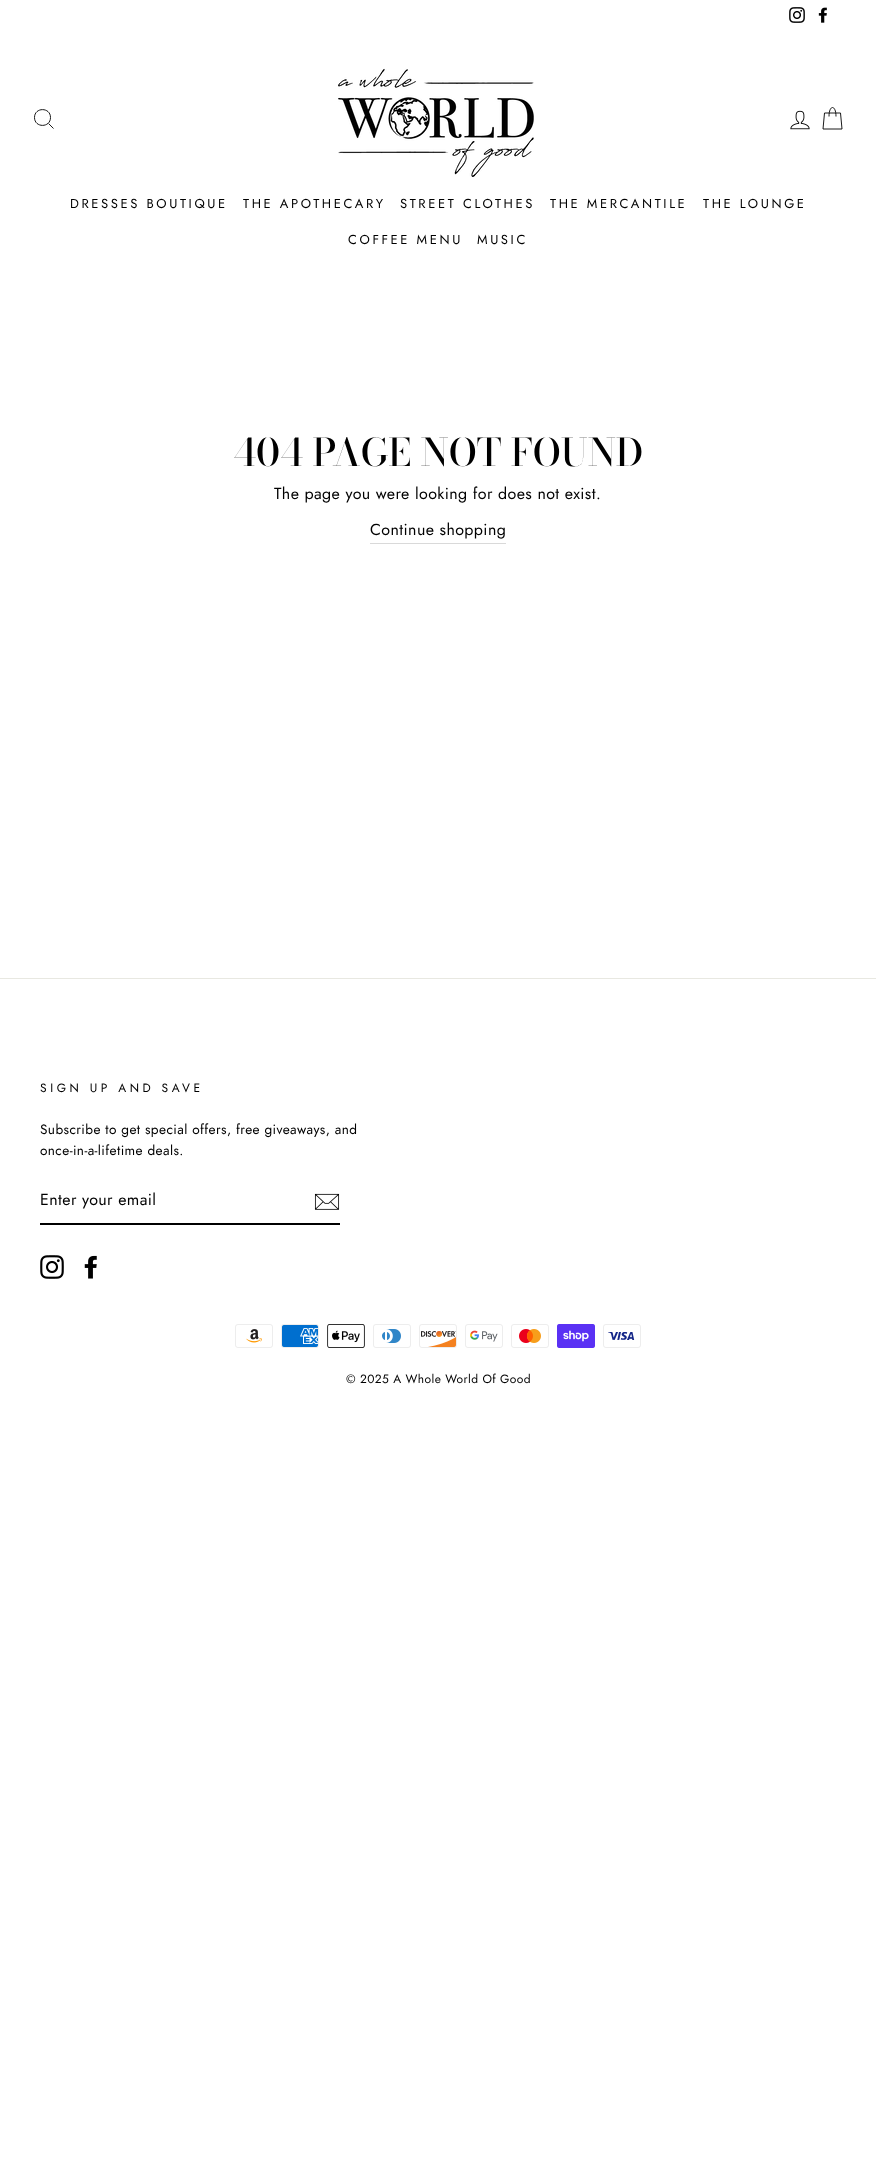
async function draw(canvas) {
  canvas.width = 876
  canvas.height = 2180
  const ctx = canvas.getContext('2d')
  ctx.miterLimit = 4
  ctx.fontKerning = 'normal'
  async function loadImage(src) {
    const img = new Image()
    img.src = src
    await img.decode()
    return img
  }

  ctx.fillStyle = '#fff'
  ctx.fillRect(0, 0, 876, 2180)
  ctx.drawImage(await loadImage('image0.png'), 789, 7, 16, 16)
  ctx.drawImage(await loadImage('image1.png'), 818, 7, 9, 16)
  ctx.beginPath()
  ctx.moveTo(50.5, 117.5)
  ctx.bezierCurveTo(50.5, 128, 34.5, 128, 34.5, 117.5)
  ctx.bezierCurveTo(34.5, 107, 50.5, 107, 50.5, 117.5)
  ctx.closePath()
  ctx.moveTo(53.5, 128.5)
  ctx.lineTo(48.5, 123.5)
  ctx.strokeStyle = '#000'
  ctx.lineWidth = 0.9
  ctx.stroke()
  ctx.drawImage(await loadImage('image2.png'), 338, 68, 196, 109)
  ctx.drawImage(await loadImage('image3.png'), 790, 110, 20, 20)
  ctx.beginPath()
  ctx.moveTo(829, 116.5)
  ctx.bezierCurveTo(829, 104.5, 836, 104.5, 836, 116.5)
  ctx.moveTo(824.5, 113)
  ctx.lineTo(840.5, 113)
  ctx.lineTo(842, 129)
  ctx.lineTo(823, 129)
  ctx.closePath()
  ctx.stroke()
  ctx.letterSpacing = '2.6px'
  ctx.font = '13px Jost'
  ctx.fillStyle = '#000'
  ctx.fillText('DRESSES BOUTIQUE', 70, 208)
  ctx.fillText('THE APOTHECARY', 243, 208)
  ctx.fillText('STREET CLOTHES', 400, 208)
  ctx.fillText('THE MERCANTILE', 550, 208)
  ctx.fillText('THE LOUNGE', 703, 208)
  ctx.fillText('COFFEE MENU', 348, 244)
  ctx.fillText('MUSIC', 477, 244)
  ctx.letterSpacing = '0px'
  ctx.font = '500 38px Bodoni Moda'
  ctx.fillText('404 PAGE NOT FOUND', 233, 466)
  ctx.letterSpacing = '0.4px'
  ctx.font = '16px Jost'
  ctx.fillText('The page you were looking for does not exist.', 274, 499)
  ctx.fillStyle = '#d9d9d9'
  ctx.fillRect(370, 543, 136, 1)
  ctx.fillStyle = '#000'
  ctx.fillText('Continue shopping', 370, 535)
  ctx.fillStyle = '#e8e8e1'
  ctx.fillRect(0, 978, 876, 1)
  ctx.letterSpacing = '3.6px'
  ctx.font = '12px Jost'
  ctx.fillStyle = '#000'
  ctx.fillText('SIGN UP AND SAVE', 40, 1092)
  ctx.letterSpacing = '0.4px'
  ctx.font = '13.6px Jost'
  ctx.fillText('Subscribe to get special offers, free giveaways, and', 40, 1134)
  ctx.fillText('once-in-a-lifetime deals.', 40, 1155)
  ctx.fillRect(40, 1223, 300, 2)
  ctx.font = '16px Jost'
  ctx.fillText('Enter your email', 40, 1205)
  ctx.drawImage(await loadImage('image4.png'), 314, 1193, 26, 17)
  ctx.drawImage(await loadImage('image5.png'), 40, 1255, 24, 24)
  ctx.drawImage(await loadImage('image6.png'), 84, 1255, 13, 24)
  ctx.drawImage(await loadImage('image7.png'), 235, 1324, 38, 24)
  ctx.drawImage(await loadImage('image8.png'), 281, 1324, 38, 24)
  ctx.drawImage(await loadImage('image9.png'), 327, 1324, 38, 24)
  ctx.drawImage(await loadImage('image10.png'), 373, 1324, 38, 24)
  ctx.drawImage(await loadImage('image11.png'), 419, 1324, 38, 24)
  ctx.drawImage(await loadImage('image12.png'), 465, 1324, 38, 24)
  ctx.drawImage(await loadImage('image13.png'), 511, 1324, 38, 24)
  ctx.drawImage(await loadImage('image14.png'), 557, 1324, 38, 24)
  ctx.drawImage(await loadImage('image15.png'), 603, 1324, 38, 24)
  ctx.font = '12px Jost'
  ctx.fillText('© 2025 A Whole World Of Good', 346, 1383)
}

draw(document.querySelector('canvas'))
